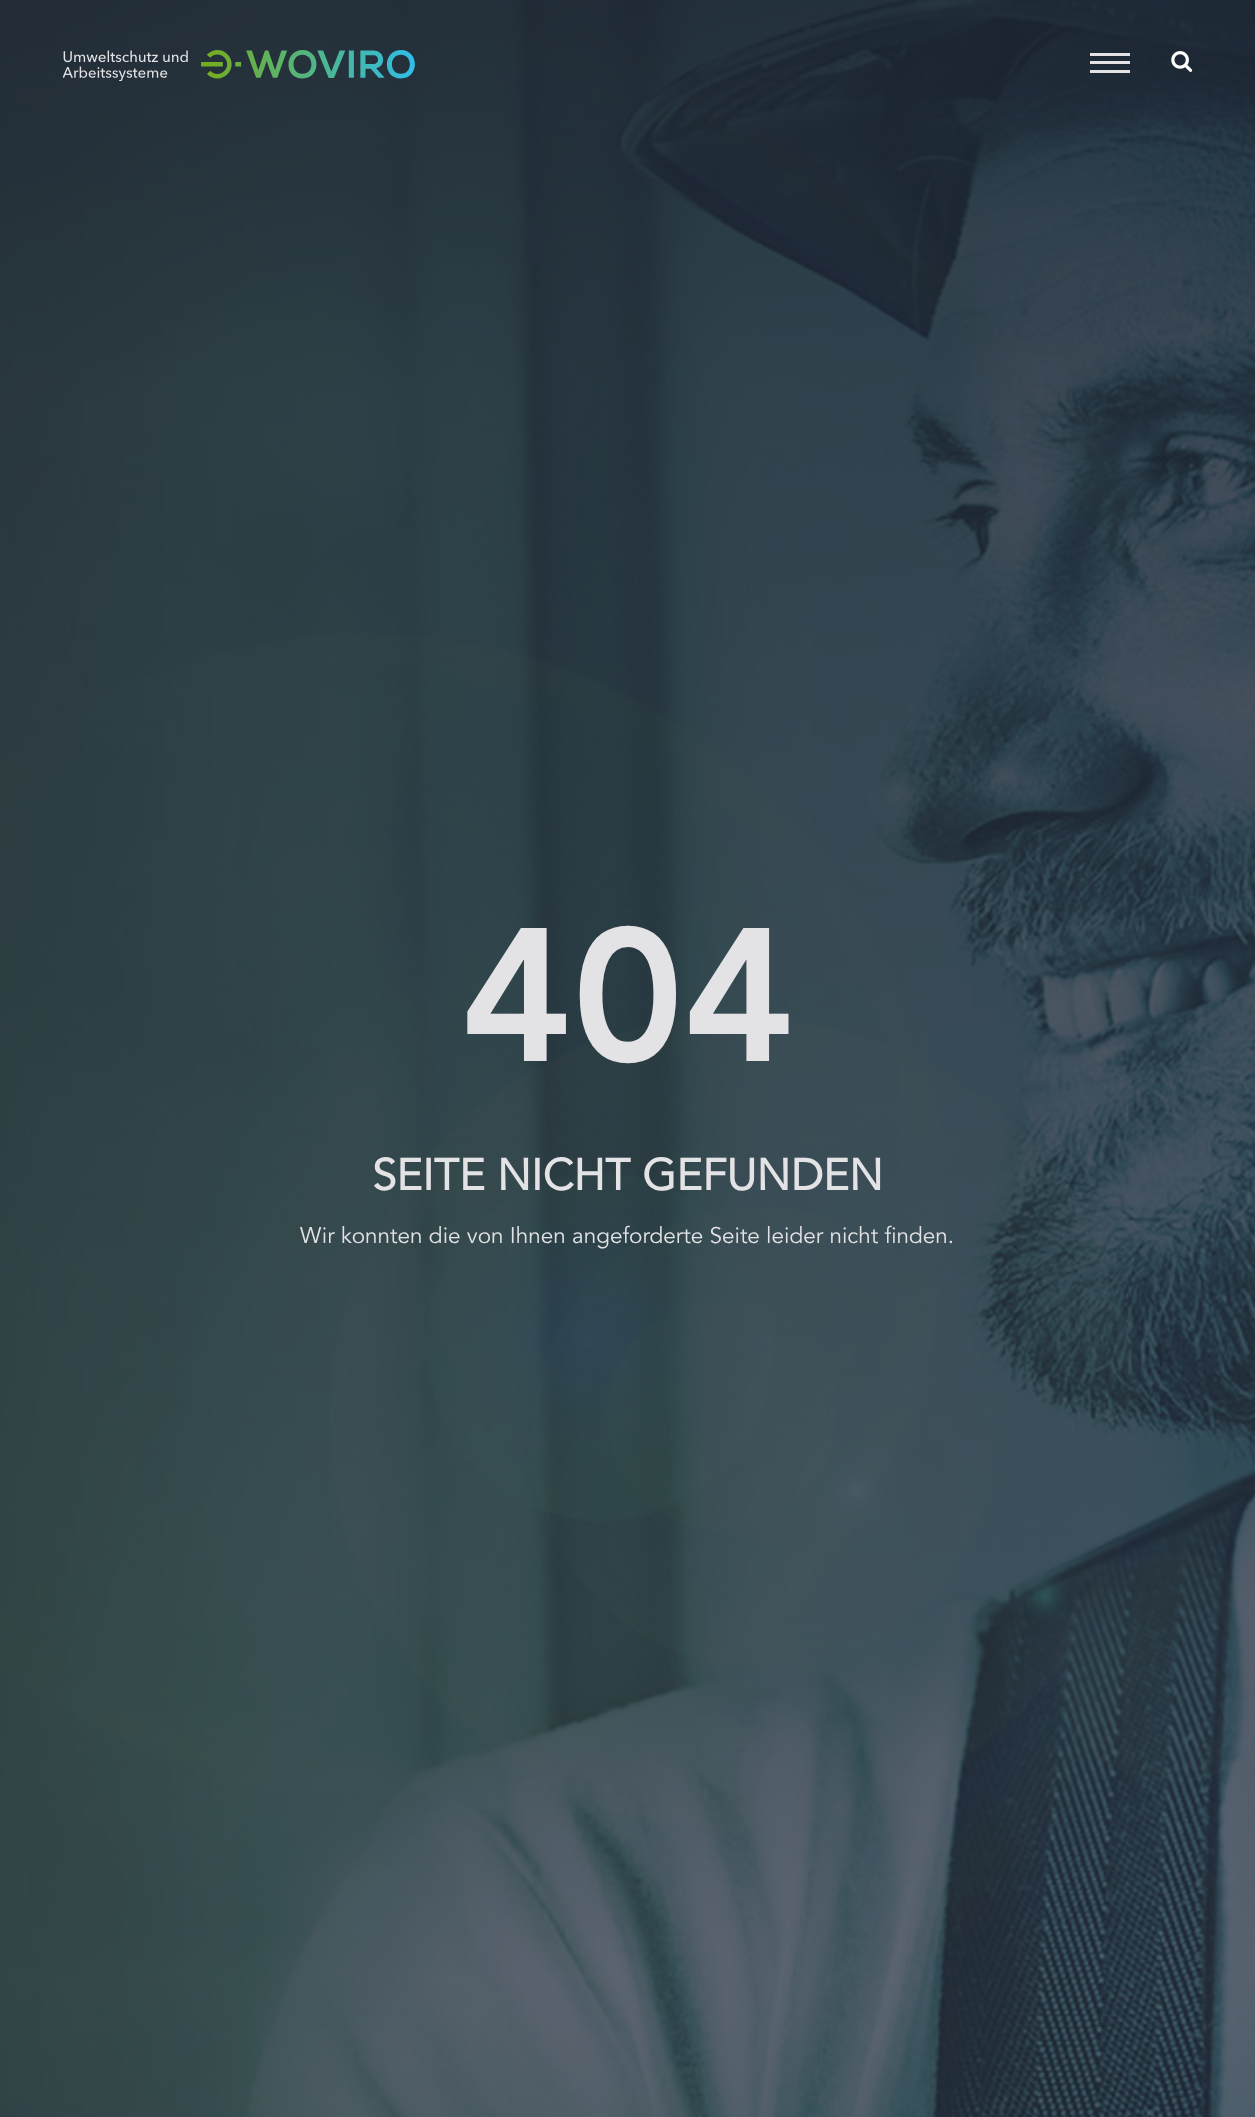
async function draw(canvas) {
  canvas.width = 1255
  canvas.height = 2117
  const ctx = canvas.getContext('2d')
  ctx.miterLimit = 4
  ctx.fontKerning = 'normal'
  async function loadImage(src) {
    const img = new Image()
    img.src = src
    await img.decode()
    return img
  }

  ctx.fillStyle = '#253142'
  ctx.fillRect(0, 0, 1255, 2117)
  ctx.drawImage(await loadImage('image2.png'), 0, 0, 1255, 2117)
  ctx.drawImage(await loadImage('image0.png'), 63, 50, 352, 31)
  ctx.fillStyle = '#e3e3e5'
  ctx.fillRect(1090, 53, 40, 3)
  ctx.fillRect(1090, 61, 40, 3)
  ctx.fillRect(1090, 70, 40, 3)
  ctx.drawImage(await loadImage('image1.png'), 1171, 51, 22, 21)
  ctx.font = '900 188px Avenir'
  ctx.fillText('404', 461, 1061)
  ctx.font = 'bold 43.75px Avenir'
  ctx.fillText('SEITE NICHT GEFUNDEN', 372, 1190)
  ctx.font = '22.5px Avenir'
  ctx.fillText('Wir konnten die von Ihnen angeforderte Seite leider nicht finden.', 300, 1243)
}

draw(document.querySelector('canvas'))
